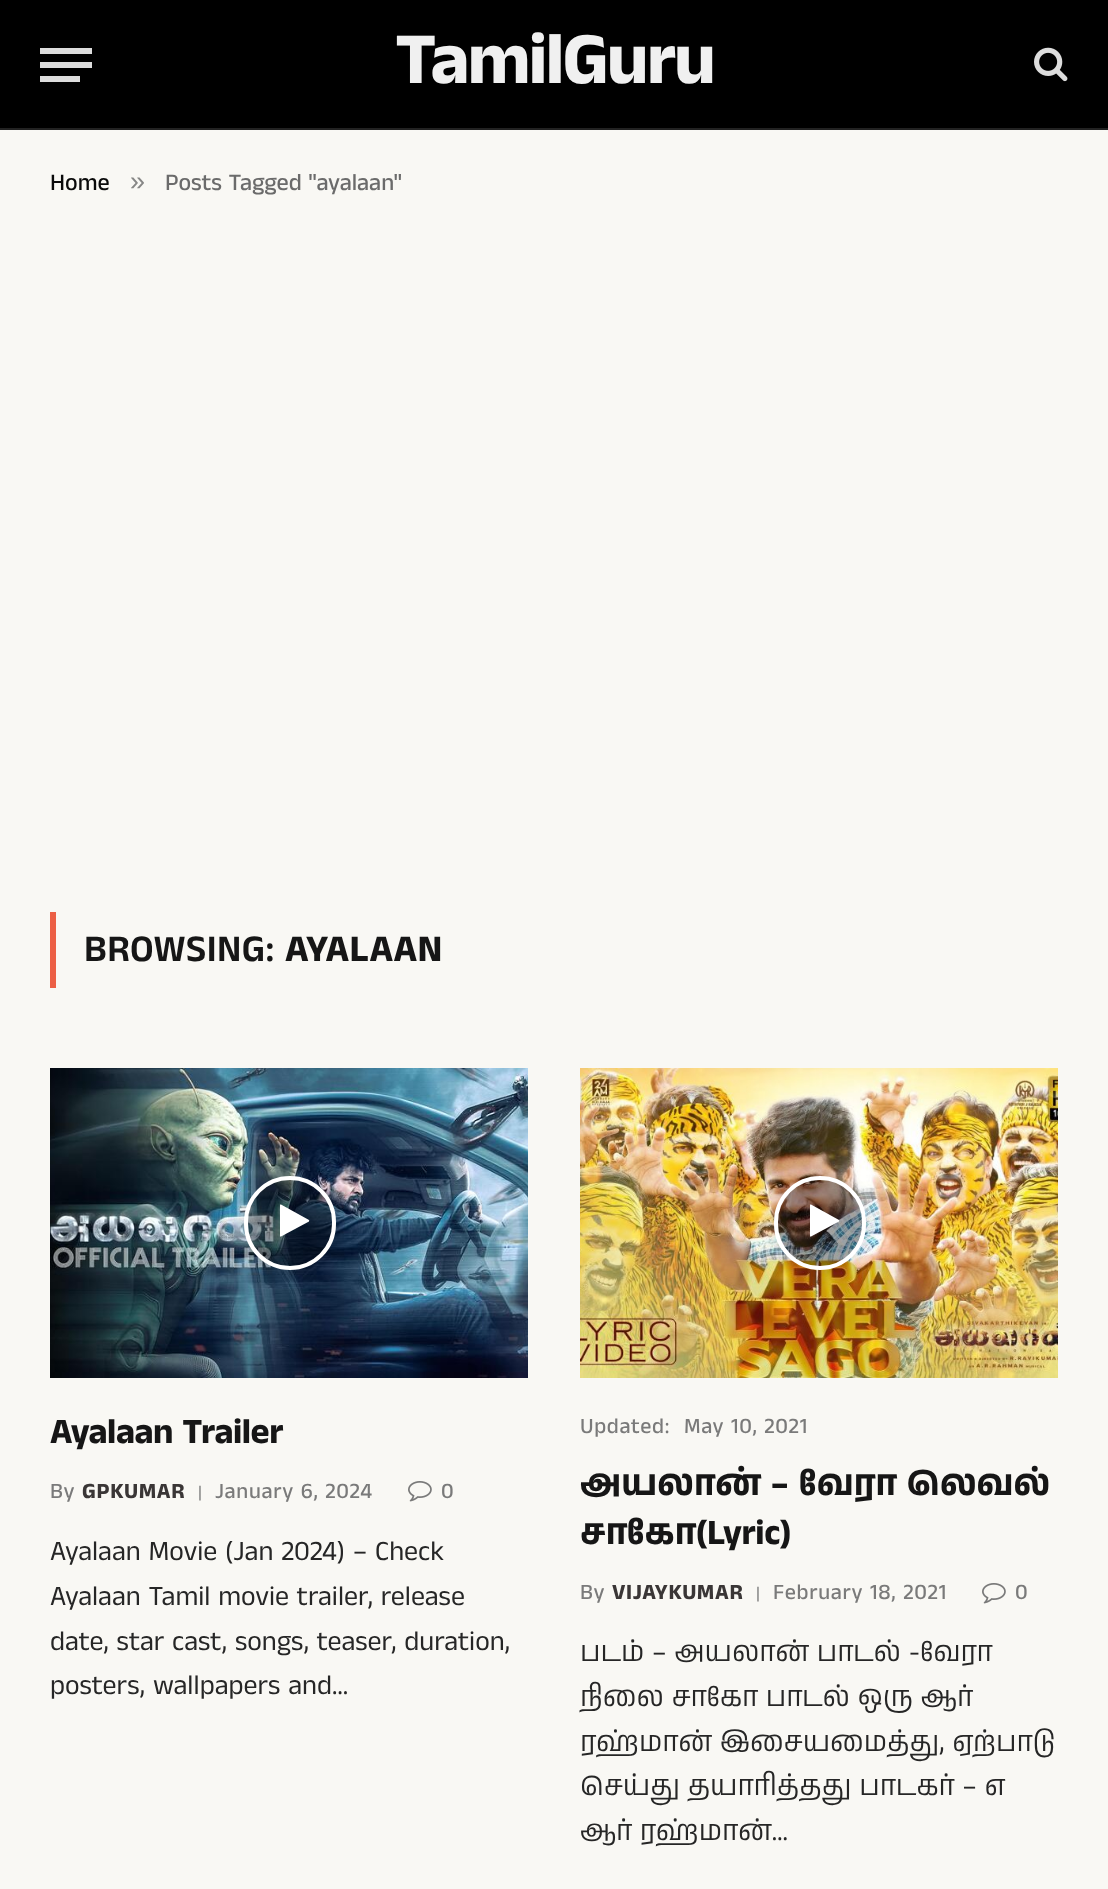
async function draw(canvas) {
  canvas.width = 1108
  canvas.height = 1889
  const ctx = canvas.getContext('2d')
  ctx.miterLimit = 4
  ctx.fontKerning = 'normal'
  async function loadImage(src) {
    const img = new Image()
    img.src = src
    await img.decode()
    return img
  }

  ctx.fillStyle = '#f9f8f4'
  ctx.fillRect(0, 0, 1108, 1889)
  ctx.fillStyle = '#000'
  ctx.fillRect(0, 0, 1108, 128)
  ctx.fillStyle = '#222'
  ctx.fillRect(0, 128, 1108, 2)
  ctx.fillStyle = '#ddd'
  ctx.fillRect(40, 76, 40, 6)
  ctx.fillRect(40, 48, 52, 6)
  ctx.fillRect(40, 62, 52, 6)
  ctx.letterSpacing = '-2px'
  ctx.font = 'bold 74px Anek Tamil'
  ctx.fillStyle = '#f0f0f0'
  ctx.fillText('TamilGuru', 395, 83)
  ctx.drawImage(await loadImage('image0.png'), 1034, 47, 34, 35)
  ctx.letterSpacing = '0px'
  ctx.font = '500 24px Anek Tamil'
  ctx.fillStyle = '#0a0a0a'
  ctx.fillText('Home', 50, 190)
  ctx.font = '27px Liberation Sans'
  ctx.fillStyle = '#878786'
  ctx.fillText('»', 130, 190)
  ctx.font = '500 24px Anek Tamil'
  ctx.fillStyle = '#6b6b6b'
  ctx.fillText('Posts Tagged "ayalaan"', 165, 190)
  ctx.fillStyle = '#ec5f45'
  ctx.fillRect(50, 912, 6, 76)
  ctx.letterSpacing = '0.4px'
  ctx.font = '600 38px Anek Tamil'
  ctx.fillStyle = '#161616'
  ctx.fillText('BROWSING:', 84, 961)
  ctx.font = 'bold 38px Anek Tamil'
  ctx.fillText('AYALAAN', 285, 961)
  ctx.drawImage(await loadImage('image1.png'), 50, 1068, 478, 310)
  ctx.save()
  ctx.beginPath()
  ctx.moveTo(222, 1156)
  ctx.lineTo(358, 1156)
  ctx.lineTo(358, 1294)
  ctx.lineTo(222, 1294)
  ctx.closePath()
  ctx.moveTo(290, 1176)
  ctx.bezierCurveTo(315.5, 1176, 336, 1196.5, 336, 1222)
  ctx.lineTo(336, 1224)
  ctx.bezierCurveTo(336, 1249.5, 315.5, 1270, 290, 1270)
  ctx.bezierCurveTo(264.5, 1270, 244, 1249.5, 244, 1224)
  ctx.lineTo(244, 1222)
  ctx.bezierCurveTo(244, 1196.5, 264.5, 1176, 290, 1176)
  ctx.closePath()
  ctx.clip('evenodd')
  ctx.fillStyle = '#00000026'
  ctx.filter = 'blur(7px)'
  ctx.beginPath()
  ctx.roundRect(244, 1178, 92, 94, 46)
  ctx.fill()
  ctx.filter = 'none'
  ctx.restore()
  ctx.fillStyle = '#00000059'
  ctx.beginPath()
  ctx.roundRect(246, 1178, 88, 90, 44)
  ctx.fill()
  ctx.strokeStyle = '#fff'
  ctx.lineWidth = 4
  ctx.stroke()
  ctx.fillStyle = '#fff'
  ctx.beginPath()
  ctx.moveTo(309, 1221.5)
  ctx.lineTo(281, 1236.5)
  ctx.lineTo(280, 1236.5)
  ctx.lineTo(280, 1205)
  ctx.bezierCurveTo(280, 1204.5, 280.5, 1204.5, 281, 1204.5)
  ctx.lineTo(309, 1220)
  ctx.bezierCurveTo(309.5, 1220.5, 309, 1221, 309, 1221.5)
  ctx.closePath()
  ctx.fill()
  ctx.letterSpacing = '-0.4px'
  ctx.font = 'bold 36px Anek Tamil'
  ctx.fillStyle = '#161616'
  ctx.fillText('Ayalaan Trailer', 50, 1443)
  ctx.letterSpacing = '0.7px'
  ctx.font = '500 22px Anek Tamil'
  ctx.fillStyle = '#7a7a7a'
  ctx.fillText('By', 50, 1498)
  ctx.font = 'bold 22px Anek Tamil'
  ctx.fillStyle = '#3a3636'
  ctx.fillText('GPKUMAR', 82, 1498)
  ctx.letterSpacing = '0px'
  ctx.font = '500 16px Anek Tamil'
  ctx.fillStyle = '#7a7a7a'
  ctx.fillText('|', 198, 1497)
  ctx.letterSpacing = '0.7px'
  ctx.font = '500 22px Anek Tamil'
  ctx.fillText('January 6, 2024', 215, 1498)
  ctx.drawImage(await loadImage('image2.png'), 408, 1481, 24, 21)
  ctx.fillText('0', 441, 1498)
  ctx.letterSpacing = '0px'
  ctx.font = '28px Anek Tamil'
  ctx.fillStyle = '#262626'
  ctx.fillText('Ayalaan Movie (Jan 2024) – Check', 50, 1560)
  ctx.fillText('Ayalaan Tamil movie trailer, release', 50, 1605)
  ctx.fillText('date, star cast, songs, teaser, duration,', 50, 1650)
  ctx.fillText('posters, wallpapers and…', 50, 1694)
  ctx.drawImage(await loadImage('image3.png'), 580, 1068, 478, 310)
  ctx.save()
  ctx.beginPath()
  ctx.moveTo(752, 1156)
  ctx.lineTo(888, 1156)
  ctx.lineTo(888, 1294)
  ctx.lineTo(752, 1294)
  ctx.closePath()
  ctx.moveTo(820, 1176)
  ctx.bezierCurveTo(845.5, 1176, 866, 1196.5, 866, 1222)
  ctx.lineTo(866, 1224)
  ctx.bezierCurveTo(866, 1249.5, 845.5, 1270, 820, 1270)
  ctx.bezierCurveTo(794.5, 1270, 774, 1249.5, 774, 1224)
  ctx.lineTo(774, 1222)
  ctx.bezierCurveTo(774, 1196.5, 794.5, 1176, 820, 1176)
  ctx.closePath()
  ctx.clip('evenodd')
  ctx.fillStyle = '#00000026'
  ctx.filter = 'blur(7px)'
  ctx.beginPath()
  ctx.roundRect(774, 1178, 92, 94, 46)
  ctx.fill()
  ctx.filter = 'none'
  ctx.restore()
  ctx.fillStyle = '#00000059'
  ctx.beginPath()
  ctx.roundRect(776, 1178, 88, 90, 44)
  ctx.fill()
  ctx.stroke()
  ctx.fillStyle = '#fff'
  ctx.beginPath()
  ctx.moveTo(839, 1221.5)
  ctx.lineTo(811, 1236.5)
  ctx.lineTo(810, 1236.5)
  ctx.lineTo(810, 1205)
  ctx.bezierCurveTo(810, 1204.5, 810.5, 1204.5, 811, 1204.5)
  ctx.lineTo(839, 1220)
  ctx.bezierCurveTo(839.5, 1220.5, 839, 1221, 839, 1221.5)
  ctx.closePath()
  ctx.fill()
  ctx.letterSpacing = '0.7px'
  ctx.font = '500 22px Anek Tamil'
  ctx.fillStyle = '#7a7a7a'
  ctx.fillText('Updated:', 580, 1433)
  ctx.fillText('May 10, 2021', 684, 1433)
  ctx.letterSpacing = '-0.4px'
  ctx.wordSpacing = '1px'
  ctx.font = 'bold 36px Anek Tamil'
  ctx.fillStyle = '#161616'
  ctx.fillText('அயலான் – வேரா லெவல்', 580, 1495)
  ctx.wordSpacing = '0px'
  ctx.fillText('சாகோ(Lyric)', 580, 1544)
  ctx.letterSpacing = '0.7px'
  ctx.font = '500 22px Anek Tamil'
  ctx.fillStyle = '#7a7a7a'
  ctx.fillText('By', 580, 1599)
  ctx.font = 'bold 22px Anek Tamil'
  ctx.fillStyle = '#3a3636'
  ctx.fillText('VIJAYKUMAR', 612, 1599)
  ctx.letterSpacing = '0px'
  ctx.font = '500 16px Anek Tamil'
  ctx.fillStyle = '#7a7a7a'
  ctx.fillText('|', 756, 1598)
  ctx.letterSpacing = '0.7px'
  ctx.font = '500 22px Anek Tamil'
  ctx.fillText('February 18, 2021', 773, 1599)
  ctx.drawImage(await loadImage('image2.png'), 982, 1583, 24, 21)
  ctx.fillText('0', 1015, 1599)
  ctx.letterSpacing = '0px'
  ctx.font = '28px Anek Tamil'
  ctx.fillStyle = '#262626'
  ctx.fillText('படம் – அயலான் பாடல் -வேரா', 580, 1661)
  ctx.fillText('நிலை சாகோ பாடல் ஒரு ஆர்', 580, 1706)
  ctx.fillText('ரஹ்மான் இசையமைத்து, ஏற்பாடு', 580, 1751)
  ctx.fillText('செய்து தயாரித்தது பாடகர் – எ', 580, 1795)
  ctx.fillText('ஆர் ரஹ்மான்…', 580, 1840)
}

draw(document.querySelector('canvas'))
